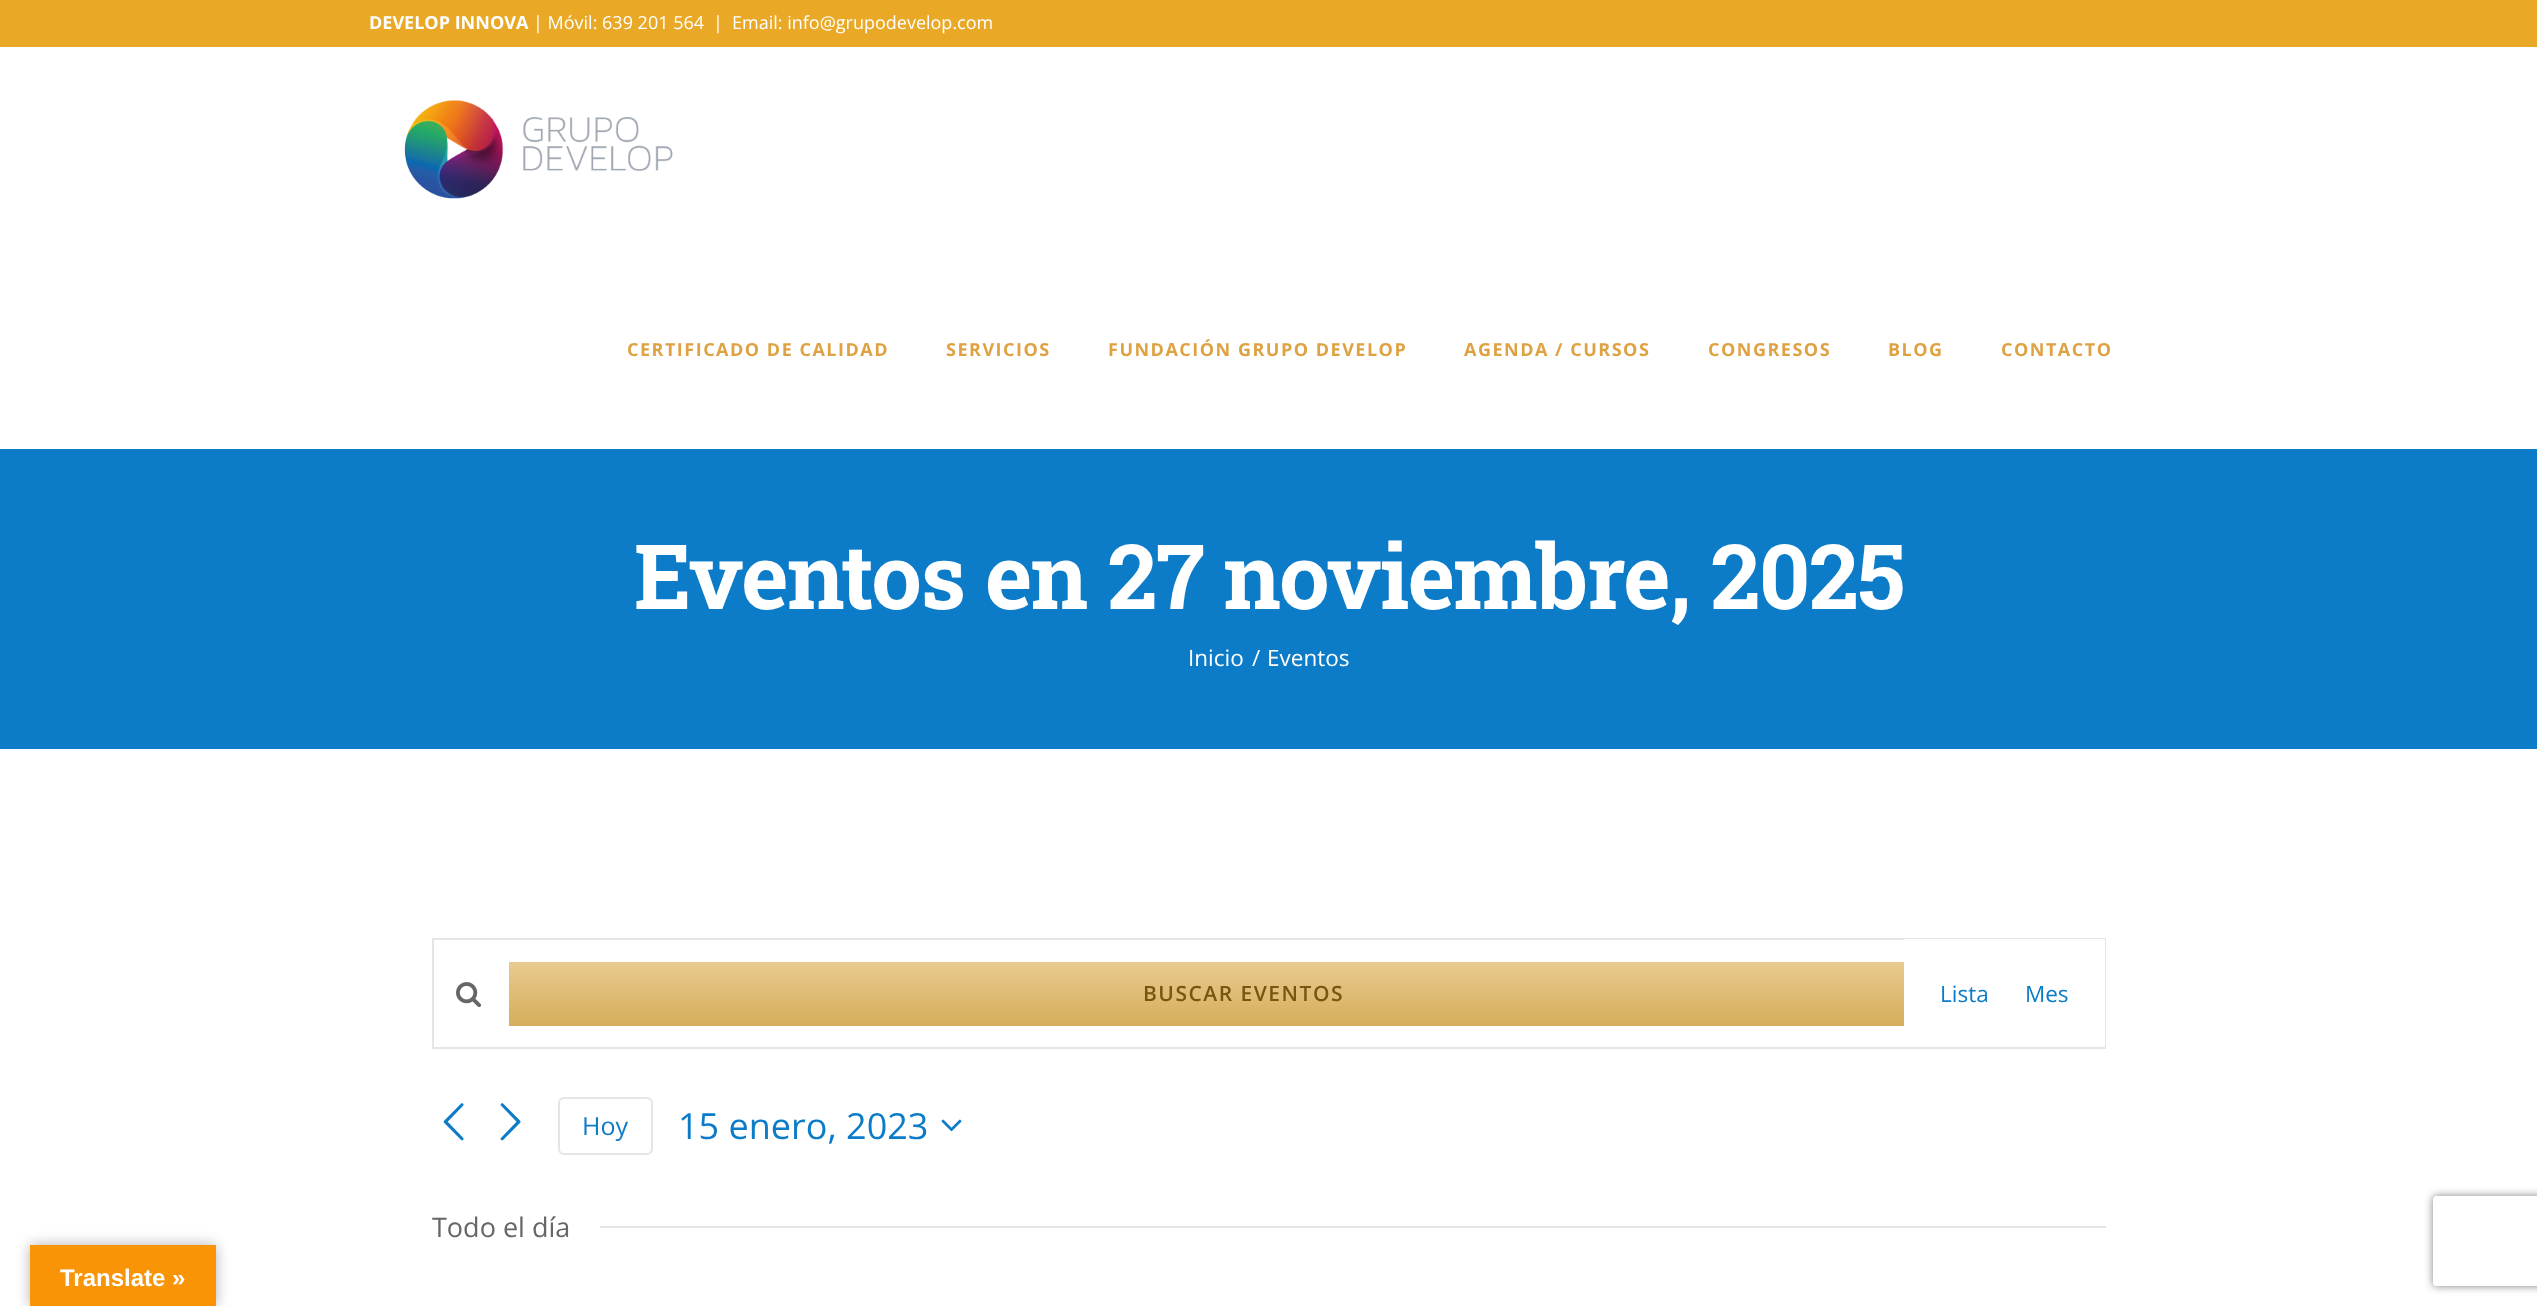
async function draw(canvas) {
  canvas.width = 2537
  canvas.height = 1306
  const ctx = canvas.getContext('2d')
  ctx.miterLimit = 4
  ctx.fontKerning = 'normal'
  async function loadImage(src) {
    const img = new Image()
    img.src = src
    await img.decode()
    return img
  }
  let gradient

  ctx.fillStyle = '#fff'
  ctx.fillRect(0, 0, 2537, 1306)
  ctx.fillStyle = '#0000004d'
  ctx.filter = 'blur(7px)'
  ctx.beginPath()
  ctx.rect(30, 1245, 186, 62)
  ctx.fill()
  ctx.filter = 'none'
  ctx.fillStyle = '#f89406'
  ctx.fillRect(30, 1245, 186, 61)
  ctx.font = 'bold 24px Liberation Sans'
  ctx.fillStyle = '#fff'
  ctx.fillText('Translate »', 60, 1286)
  ctx.fillStyle = '#e9a825'
  ctx.fillRect(0, 0, 2537, 47)
  ctx.font = 'bold 18px Open Sans'
  ctx.fillStyle = '#fff'
  ctx.fillText('DEVELOP INNOVA', 369, 29)
  ctx.font = '18px Open Sans'
  ctx.fillText('| Móvil: 639 201 564', 533, 29)
  ctx.fillText('|', 713, 29)
  ctx.fillText('Email: info@grupodevelop.com', 732, 29)
  ctx.drawImage(await loadImage('image0.png'), 404, 100, 269, 99)
  ctx.letterSpacing = '1.5px'
  ctx.font = 'bold 18px Open Sans'
  ctx.fillStyle = '#dfa243'
  ctx.fillText('CERTIFICADO DE CALIDAD', 627, 356)
  ctx.fillText('SERVICIOS', 946, 356)
  ctx.fillText('FUNDACIÓN GRUPO DEVELOP', 1108, 356)
  ctx.fillText('AGENDA / CURSOS', 1464, 356)
  ctx.save()
  ctx.beginPath()
  ctx.rect(1709, 252, 180, 195)
  ctx.clip()
  ctx.fillText('CONGRESOS', 1708, 356)
  ctx.restore()
  ctx.fillText('BLOG', 1888, 356)
  ctx.fillText('CONTACTO', 2001, 356)
  ctx.fillStyle = '#0c7bc8'
  ctx.fillRect(0, 449, 2537, 300)
  ctx.letterSpacing = '-1.5px'
  ctx.font = 'bold 90px Roboto Slab'
  ctx.fillStyle = '#fff'
  ctx.fillText('Eventos en 27 noviembre, 2025', 634, 609)
  ctx.letterSpacing = '0px'
  ctx.font = '22.5px Open Sans'
  ctx.fillText('Inicio', 1188, 666)
  ctx.fillText('/', 1252, 666)
  ctx.fillText('Eventos', 1267, 666)
  ctx.strokeStyle = '#e7e4e2'
  ctx.lineWidth = 2
  ctx.strokeRect(433, 939, 1672, 109)
  ctx.drawImage(await loadImage('image1.png'), 456, 982, 25, 26)
  gradient = ctx.createLinearGradient(1244, 1026, 1244, 962)
  gradient.addColorStop(0, '#d6ad5a')
  gradient.addColorStop(1, '#e8cb90')
  ctx.fillStyle = gradient
  ctx.fillRect(509, 962, 1395, 64)
  ctx.letterSpacing = '1.5px'
  ctx.font = '600 21px Open Sans'
  ctx.fillStyle = '#785510'
  ctx.fillText('BUSCAR EVENTOS', 1143, 1001)
  ctx.fillStyle = '#fff'
  ctx.fillRect(1904, 939, 201, 108)
  ctx.letterSpacing = '0px'
  ctx.font = '22.5px Open Sans'
  ctx.fillStyle = '#0c7bc8'
  ctx.fillText('Lista', 1940, 1002)
  ctx.fillText('Mes', 2025, 1002)
  ctx.drawImage(await loadImage('image2.png'), 443, 1103, 21, 38)
  ctx.drawImage(await loadImage('image3.png'), 500, 1103, 21, 38)
  ctx.beginPath()
  ctx.roundRect(559, 1098, 93, 56, 5)
  ctx.stroke()
  ctx.font = '25px Open Sans'
  ctx.fillText('Hoy', 582, 1135)
  ctx.font = '36px Open Sans'
  ctx.fillText('15 enero, 2023', 678, 1139)
  ctx.drawImage(await loadImage('image4.png'), 941, 1119, 21, 13)
  ctx.font = '27px Open Sans'
  ctx.fillStyle = '#666'
  ctx.fillText('Todo el día', 432, 1237)
  ctx.fillStyle = '#e7e4e2'
  ctx.fillRect(600, 1226, 1506, 2)
  ctx.save()
  ctx.beginPath()
  ctx.moveTo(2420, 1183)
  ctx.lineTo(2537, 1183)
  ctx.lineTo(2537, 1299)
  ctx.lineTo(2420, 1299)
  ctx.closePath()
  ctx.moveTo(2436, 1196)
  ctx.lineTo(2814, 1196)
  ctx.bezierCurveTo(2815.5, 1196, 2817, 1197.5, 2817, 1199)
  ctx.lineTo(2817, 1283)
  ctx.bezierCurveTo(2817, 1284.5, 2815.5, 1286, 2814, 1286)
  ctx.lineTo(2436, 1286)
  ctx.bezierCurveTo(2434.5, 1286, 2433, 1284.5, 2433, 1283)
  ctx.lineTo(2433, 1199)
  ctx.bezierCurveTo(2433, 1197.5, 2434.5, 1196, 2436, 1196)
  ctx.closePath()
  ctx.clip('evenodd')
  ctx.fillStyle = '#808080'
  ctx.filter = 'blur(4px)'
  ctx.beginPath()
  ctx.roundRect(2433, 1196, 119, 90, 3)
  ctx.fill()
  ctx.filter = 'none'
  ctx.restore()
}

draw(document.querySelector('canvas'))
